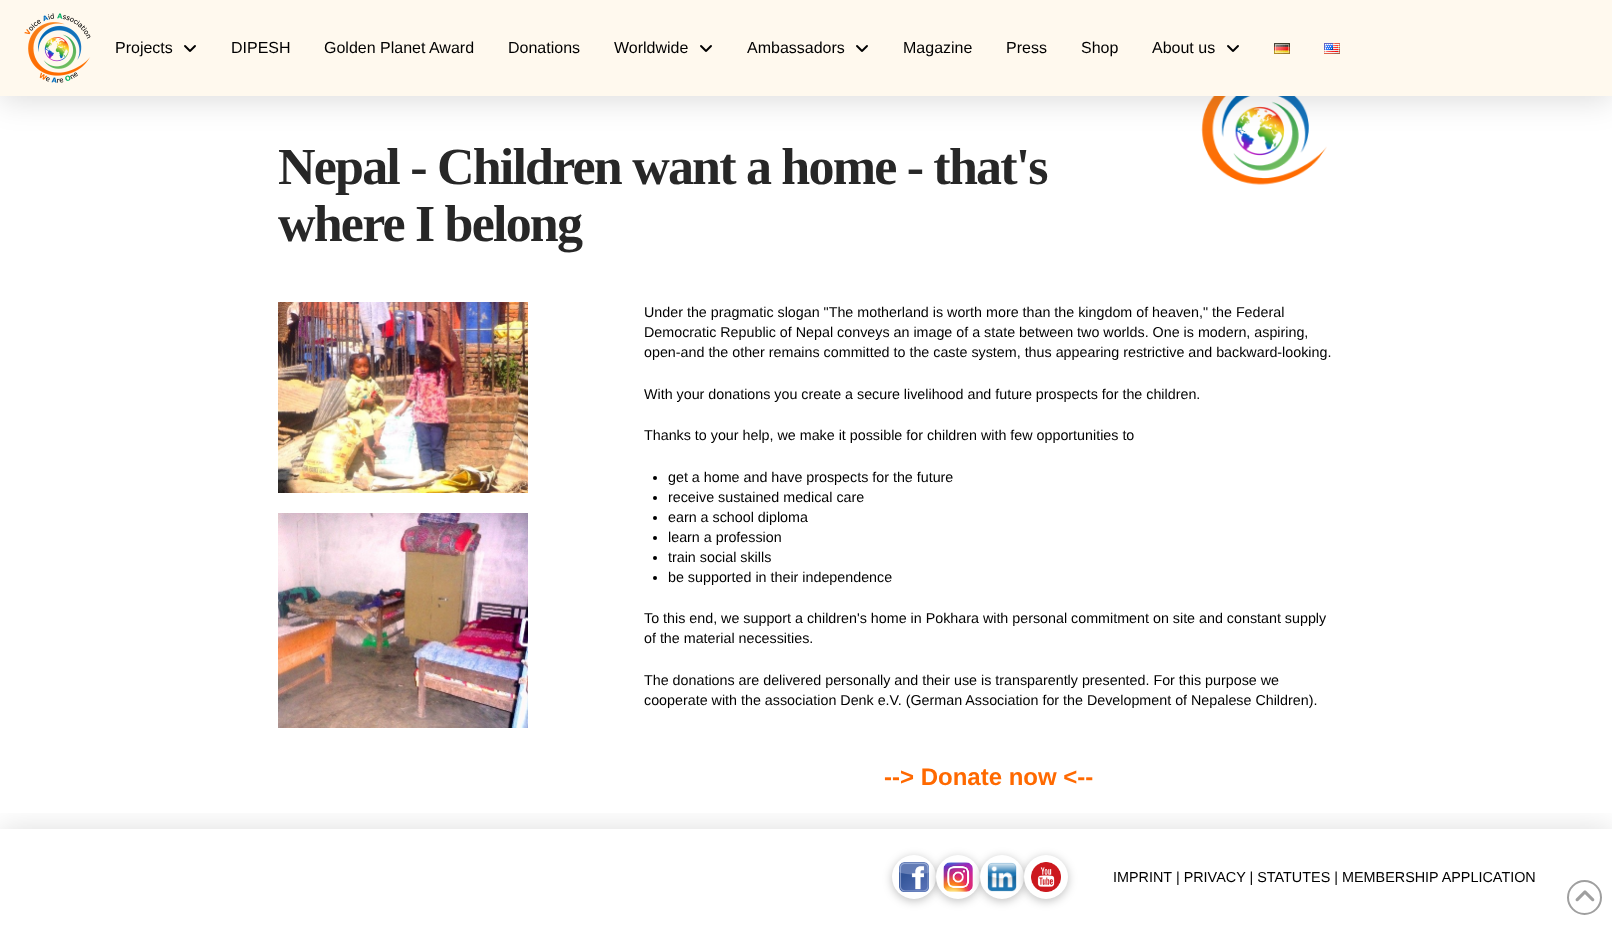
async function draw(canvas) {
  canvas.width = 1612
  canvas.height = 925
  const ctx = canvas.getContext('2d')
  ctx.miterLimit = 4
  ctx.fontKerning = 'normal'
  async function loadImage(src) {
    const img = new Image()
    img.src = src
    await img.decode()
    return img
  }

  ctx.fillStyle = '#fff'
  ctx.fillRect(0, 0, 1612, 925)
  ctx.drawImage(await loadImage('image4.png'), 1201, 96, 126, 89)
  ctx.fillStyle = '#00000026'
  ctx.filter = 'blur(16px)'
  ctx.beginPath()
  ctx.rect(0, 3, 1612, 96)
  ctx.fill()
  ctx.filter = 'none'
  ctx.fillStyle = '#fff9ee'
  ctx.fillRect(0, 0, 1612, 96)
  ctx.drawImage(await loadImage('image0.png'), 24, 13, 67, 70)
  ctx.font = '16px Liberation Sans'
  ctx.fillStyle = '#000'
  ctx.fillText('Projects', 115, 53)
  ctx.drawImage(await loadImage('image1.png'), 184, 45, 12, 7)
  ctx.fillText('DIPESH', 231, 53)
  ctx.fillText('Golden Planet Award', 324, 53)
  ctx.fillText('Donations', 508, 53)
  ctx.fillText('Worldwide', 614, 53)
  ctx.drawImage(await loadImage('image1.png'), 700, 45, 12, 7)
  ctx.fillText('Ambassadors', 747, 53)
  ctx.drawImage(await loadImage('image1.png'), 856, 45, 12, 7)
  ctx.fillText('Magazine', 903, 53)
  ctx.fillText('Press', 1006, 53)
  ctx.fillText('Shop', 1081, 53)
  ctx.fillText('About us', 1152, 53)
  ctx.drawImage(await loadImage('image1.png'), 1227, 45, 12, 7)
  ctx.drawImage(await loadImage('image2.png'), 1274, 43, 16, 11)
  ctx.drawImage(await loadImage('image3.png'), 1324, 43, 16, 11)
  ctx.letterSpacing = '-1.8px'
  ctx.font = 'bold 52px Liberation Serif'
  ctx.fillStyle = '#272727'
  ctx.fillText('Nepal - Children want a home - that\'s', 278, 184)
  ctx.fillText('where I belong', 278, 241)
  ctx.drawImage(await loadImage('image5.png'), 278, 302, 250, 191)
  ctx.drawImage(await loadImage('image6.png'), 278, 513, 250, 215)
  ctx.letterSpacing = '0px'
  ctx.font = '14.3px Liberation Sans'
  ctx.fillStyle = '#000'
  ctx.fillText('Under the pragmatic slogan "The motherland is worth more than the kingdom of heaven," the Federal', 644, 317)
  ctx.fillText('Democratic Republic of Nepal conveys an image of a state between two worlds. One is modern, aspiring,', 644, 337)
  ctx.fillText('open-and the other remains committed to the caste system, thus appearing restrictive and backward-looking.', 644, 357)
  ctx.fillText('With your donations you create a secure livelihood and future prospects for the children.', 644, 399)
  ctx.fillText('Thanks to your help, we make it possible for children with few opportunities to', 644, 440)
  ctx.beginPath()
  ctx.arc(655, 478, 2, 0, 2 * Math.PI)
  ctx.fill()
  ctx.fillText('get a home and have prospects for the future', 668, 482)
  ctx.beginPath()
  ctx.arc(655, 498, 2, 0, 2 * Math.PI)
  ctx.fill()
  ctx.fillText('receive sustained medical care', 668, 502)
  ctx.beginPath()
  ctx.arc(655, 518, 2, 0, 2 * Math.PI)
  ctx.fill()
  ctx.fillText('earn a school diploma', 668, 522)
  ctx.beginPath()
  ctx.arc(655, 538, 2, 0, 2 * Math.PI)
  ctx.fill()
  ctx.fillText('learn a profession', 668, 542)
  ctx.beginPath()
  ctx.arc(655, 558, 2, 0, 2 * Math.PI)
  ctx.fill()
  ctx.fillText('train social skills', 668, 562)
  ctx.beginPath()
  ctx.arc(655, 578, 2, 0, 2 * Math.PI)
  ctx.fill()
  ctx.fillText('be supported in their independence', 668, 582)
  ctx.fillText('To this end, we support a children\'s home in Pokhara with personal commitment on site and constant supply', 644, 623)
  ctx.fillText('of the material necessities.', 644, 643)
  ctx.fillText('The donations are delivered personally and their use is transparently presented. For this purpose we', 644, 685)
  ctx.fillText('cooperate with the association Denk e.V. (German Association for the Development of Nepalese Children).', 644, 705)
  ctx.font = 'bold 24px Liberation Sans'
  ctx.fillStyle = '#ff6900'
  ctx.fillText('--> Donate now <--', 884, 785)
  ctx.save()
  ctx.beginPath()
  ctx.rect(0, 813, 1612, 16)
  ctx.clip()
  ctx.fillStyle = '#00000026'
  ctx.filter = 'blur(16px)'
  ctx.beginPath()
  ctx.rect(0, 831, 1612, 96)
  ctx.fill()
  ctx.filter = 'none'
  ctx.restore()
  ctx.fillStyle = '#00000040'
  ctx.filter = 'blur(5px)'
  ctx.beginPath()
  ctx.roundRect(892, 857, 44, 44, 22)
  ctx.fill()
  ctx.filter = 'none'
  ctx.fillStyle = '#fff'
  ctx.beginPath()
  ctx.arc(914, 877, 22, 0, 2 * Math.PI)
  ctx.fill()
  ctx.drawImage(await loadImage('image7.png'), 899, 862, 30, 30)
  ctx.fillStyle = '#00000040'
  ctx.filter = 'blur(5px)'
  ctx.beginPath()
  ctx.roundRect(936, 857, 44, 44, 22)
  ctx.fill()
  ctx.filter = 'none'
  ctx.fillStyle = '#fff'
  ctx.beginPath()
  ctx.arc(958, 877, 22, 0, 2 * Math.PI)
  ctx.fill()
  ctx.drawImage(await loadImage('image8.png'), 943, 862, 30, 30)
  ctx.fillStyle = '#00000040'
  ctx.filter = 'blur(5px)'
  ctx.beginPath()
  ctx.roundRect(980, 857, 44, 44, 22)
  ctx.fill()
  ctx.filter = 'none'
  ctx.fillStyle = '#fff'
  ctx.beginPath()
  ctx.arc(1002, 877, 22, 0, 2 * Math.PI)
  ctx.fill()
  ctx.drawImage(await loadImage('image9.png'), 987, 862, 30, 30)
  ctx.fillStyle = '#00000040'
  ctx.filter = 'blur(5px)'
  ctx.beginPath()
  ctx.roundRect(1024, 857, 44, 44, 22)
  ctx.fill()
  ctx.filter = 'none'
  ctx.fillStyle = '#fff'
  ctx.beginPath()
  ctx.arc(1046, 877, 22, 0, 2 * Math.PI)
  ctx.fill()
  ctx.drawImage(await loadImage('image10.png'), 1031, 862, 30, 30)
  ctx.font = '14.4px Liberation Sans'
  ctx.fillStyle = '#000'
  ctx.fillText('IMPRINT | PRIVACY | STATUTES | MEMBERSHIP APPLICATION', 1113, 882)
  ctx.beginPath()
  ctx.arc(1584.5, 897.5, 16.5, 0, 2 * Math.PI)
  ctx.strokeStyle = '#9f9f9f'
  ctx.lineWidth = 2
  ctx.stroke()
  ctx.drawImage(await loadImage('image11.png'), 1575, 890, 20, 12)
}

draw(document.querySelector('canvas'))
